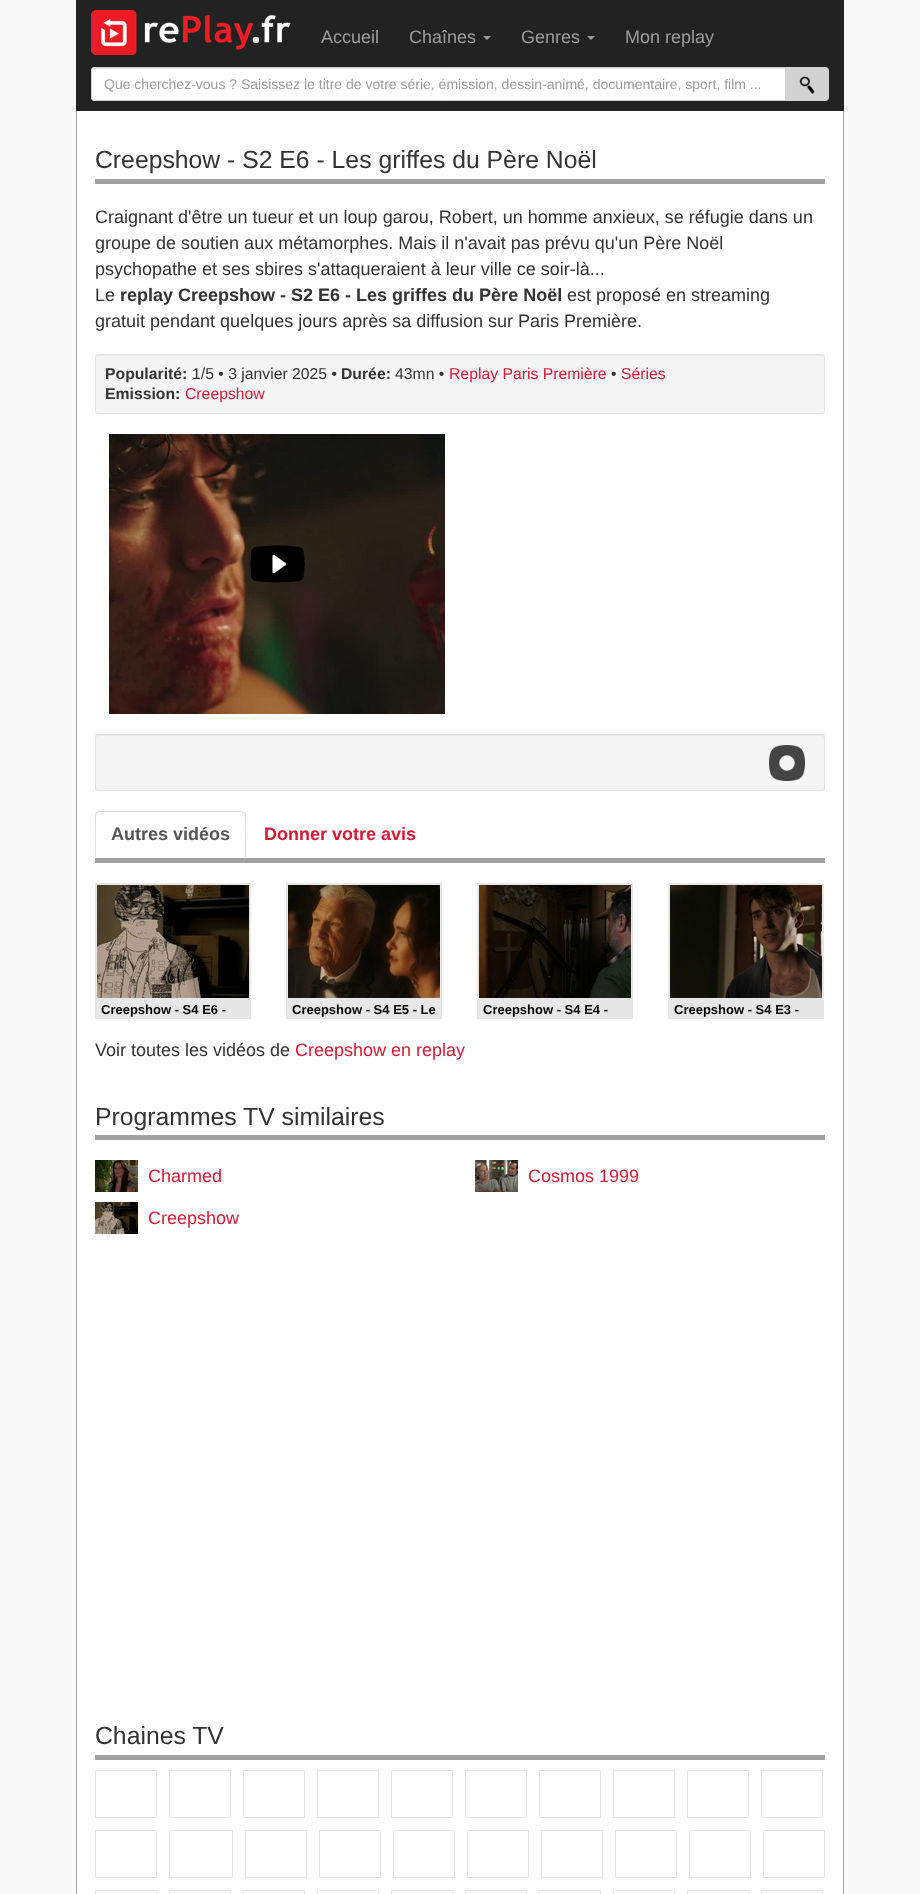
async function draw(canvas) {
  canvas.width = 920
  canvas.height = 1894
  const ctx = canvas.getContext('2d')
  ctx.miterLimit = 4
  ctx.fontKerning = 'normal'
  async function loadImage(src) {
    const img = new Image()
    img.src = src
    await img.decode()
    return img
  }

  ctx.fillStyle = '#f8f8f8'
  ctx.fillRect(0, 0, 920, 1894)
  ctx.fillStyle = '#222'
  ctx.fillRect(76, 0, 768, 111)
  ctx.drawImage(await loadImage('image0.png'), 91, 10, 200, 45)
  ctx.font = '18px Liberation Sans'
  ctx.fillStyle = '#9d9d9d'
  ctx.fillText('Accueil', 321, 43)
  ctx.fillText('Chaînes', 409, 43)
  ctx.fillStyle = '#999'
  ctx.beginPath()
  ctx.moveTo(483, 36)
  ctx.lineTo(491, 36)
  ctx.lineTo(487, 40)
  ctx.closePath()
  ctx.fill()
  ctx.fillStyle = '#9d9d9d'
  ctx.fillText('Genres', 521, 43)
  ctx.fillStyle = '#999'
  ctx.beginPath()
  ctx.moveTo(587, 36)
  ctx.lineTo(595, 36)
  ctx.lineTo(591, 40)
  ctx.closePath()
  ctx.fill()
  ctx.fillStyle = '#9d9d9d'
  ctx.fillText('Mon replay', 625, 43)
  ctx.fillStyle = '#fff'
  ctx.beginPath()
  ctx.roundRect(91, 67, 695, 34, [4, 0, 0, 4])
  ctx.fill()
  ctx.fillStyle = '#ececec'
  ctx.beginPath()
  ctx.moveTo(95, 69)
  ctx.lineTo(785, 69)
  ctx.lineTo(785, 68)
  ctx.lineTo(95, 68)
  ctx.bezierCurveTo(93, 68, 92, 69, 92, 71)
  ctx.lineTo(92, 72)
  ctx.bezierCurveTo(92, 70, 93, 69, 95, 69)
  ctx.closePath()
  ctx.fill()
  ctx.beginPath()
  ctx.roundRect(91.5, 67.5, 694, 33, [3.5, 0, 0, 3.5])
  ctx.strokeStyle = '#ccc'
  ctx.stroke()
  ctx.font = '14px Liberation Sans'
  ctx.fillStyle = '#9d9d9d'
  ctx.fillText('Que cherchez-vous ? Saisissez le titre de votre série, émission, dessin-animé, documentaire, sport, film ...', 104, 89)
  ctx.fillStyle = '#d2d2d2'
  ctx.beginPath()
  ctx.roundRect(785, 67, 44, 34, [0, 4, 4, 0])
  ctx.fill()
  ctx.drawImage(await loadImage('image1.png'), 799, 76, 16, 18)
  ctx.fillStyle = '#fff'
  ctx.fillRect(77, 111, 766, 1783)
  ctx.fillStyle = '#a2a2a2'
  ctx.fillRect(843, 111, 1, 1783)
  ctx.fillRect(76, 111, 1, 1783)
  ctx.fillRect(95, 179, 730, 5)
  ctx.font = '24.75px Liberation Sans'
  ctx.fillStyle = '#333'
  ctx.fillText('Creepshow - S2 E6 - Les griffes du Père Noël', 95, 168)
  ctx.font = '18px Liberation Sans'
  ctx.fillText('Craignant d\'être un tueur et un loup garou, Robert, un homme anxieux, se réfugie dans un', 95, 223)
  ctx.fillText('groupe de soutien aux métamorphes. Mais il n\'avait pas prévu qu\'un Père Noël', 95, 249)
  ctx.fillText('psychopathe et ses sbires s\'attaqueraient à leur ville ce soir-là...', 95, 275)
  ctx.fillText('Le', 95, 301)
  ctx.font = 'bold 18px Liberation Sans'
  ctx.fillText('replay Creepshow - S2 E6 - Les griffes du Père Noël', 120, 301)
  ctx.font = '18px Liberation Sans'
  ctx.fillText('est proposé en streaming', 567, 301)
  ctx.fillText('gratuit pendant quelques jours après sa diffusion sur Paris Première.', 95, 327)
  ctx.fillStyle = '#f5f5f5'
  ctx.beginPath()
  ctx.roundRect(95, 354, 730, 60, 3)
  ctx.fill()
  ctx.fillStyle = '#e9e9e9'
  ctx.beginPath()
  ctx.moveTo(98, 356)
  ctx.lineTo(822, 356)
  ctx.bezierCurveTo(823, 356, 824, 357, 824, 358)
  ctx.bezierCurveTo(824, 357, 824, 355, 822, 355)
  ctx.lineTo(98, 355)
  ctx.bezierCurveTo(96, 355, 96, 357, 96, 358)
  ctx.bezierCurveTo(96, 357, 97, 356, 98, 356)
  ctx.closePath()
  ctx.fill()
  ctx.beginPath()
  ctx.roundRect(95.5, 354.5, 729, 59, 2.5)
  ctx.strokeStyle = '#e3e3e3'
  ctx.stroke()
  ctx.font = 'bold 15.75px Liberation Sans'
  ctx.fillStyle = '#333'
  ctx.fillText('Popularité:', 105, 379)
  ctx.font = '15.75px Liberation Sans'
  ctx.fillText('1/5 • 3 janvier 2025 •', 192, 379)
  ctx.font = 'bold 15.75px Liberation Sans'
  ctx.fillText('Durée:', 341, 379)
  ctx.font = '15.75px Liberation Sans'
  ctx.fillText('43mn •', 395, 379)
  ctx.fillStyle = '#d51a35'
  ctx.fillText('Replay Paris Première', 449, 379)
  ctx.fillStyle = '#333'
  ctx.fillText('•', 611, 379)
  ctx.fillStyle = '#d51a35'
  ctx.fillText('Séries', 621, 379)
  ctx.font = 'bold 15.75px Liberation Sans'
  ctx.fillStyle = '#333'
  ctx.fillText('Emission:', 105, 399)
  ctx.font = '15.75px Liberation Sans'
  ctx.fillStyle = '#d51a35'
  ctx.fillText('Creepshow', 185, 399)
  ctx.drawImage(await loadImage('image2.png'), 109, 434, 336, 280)
  ctx.drawImage(await loadImage('image3.png'), 250, 545, 55, 38)
  ctx.fillStyle = '#f5f5f5'
  ctx.beginPath()
  ctx.roundRect(95, 734, 730, 57, 3)
  ctx.fill()
  ctx.fillStyle = '#e9e9e9'
  ctx.beginPath()
  ctx.moveTo(98, 736)
  ctx.lineTo(823, 736)
  ctx.lineTo(824, 739)
  ctx.lineTo(824, 737)
  ctx.bezierCurveTo(824, 736, 823, 735, 822, 735)
  ctx.lineTo(98, 735)
  ctx.bezierCurveTo(97, 735, 96, 736, 96, 737)
  ctx.closePath()
  ctx.fill()
  ctx.beginPath()
  ctx.roundRect(95.5, 734.5, 729, 56, 2.5)
  ctx.stroke()
  ctx.drawImage(await loadImage('image4.png'), 769, 745, 36, 36)
  ctx.fillStyle = '#a2a2a2'
  ctx.fillRect(95, 858, 730, 5)
  ctx.fillStyle = '#ddd'
  ctx.beginPath()
  ctx.moveTo(99, 811)
  ctx.lineTo(96, 812)
  ctx.lineTo(97, 813)
  ctx.lineTo(99, 812)
  ctx.lineTo(242, 812)
  ctx.lineTo(244, 813)
  ctx.lineTo(245, 812)
  ctx.lineTo(242, 811)
  ctx.closePath()
  ctx.fill()
  ctx.beginPath()
  ctx.moveTo(246, 858)
  ctx.lineTo(246, 815)
  ctx.bezierCurveTo(246, 814, 246, 813, 245, 812)
  ctx.lineTo(244, 813)
  ctx.bezierCurveTo(246, 815, 245, 852, 245, 857)
  ctx.closePath()
  ctx.fill()
  ctx.beginPath()
  ctx.moveTo(95, 858)
  ctx.lineTo(96, 857)
  ctx.bezierCurveTo(96, 852, 95, 815, 97, 813)
  ctx.lineTo(96, 812)
  ctx.lineTo(95, 815)
  ctx.closePath()
  ctx.fill()
  ctx.font = 'bold 18px Liberation Sans'
  ctx.fillStyle = '#555'
  ctx.fillText('Autres vidéos', 111, 840)
  ctx.fillStyle = '#d51a35'
  ctx.fillText('Donner votre avis', 264, 840)
  ctx.strokeStyle = '#e7e7e7'
  ctx.lineWidth = 2
  ctx.strokeRect(96, 884, 154, 134)
  ctx.drawImage(await loadImage('image5.png'), 97, 885, 152, 113)
  ctx.fillStyle = '#e7e7e7'
  ctx.fillRect(97, 998, 152, 19)
  ctx.font = 'bold 13px Liberation Sans'
  ctx.fillStyle = '#000'
  ctx.fillText('Creepshow - S4 E6 -', 101, 1014)
  ctx.strokeRect(287, 884, 154, 134)
  ctx.drawImage(await loadImage('image6.png'), 288, 885, 152, 113)
  ctx.fillStyle = '#e7e7e7'
  ctx.fillRect(288, 998, 152, 19)
  ctx.fillStyle = '#000'
  ctx.fillText('Creepshow - S4 E5 - Le', 292, 1014)
  ctx.strokeRect(478, 884, 154, 134)
  ctx.drawImage(await loadImage('image7.png'), 479, 885, 152, 113)
  ctx.fillStyle = '#e7e7e7'
  ctx.fillRect(479, 998, 152, 19)
  ctx.fillStyle = '#000'
  ctx.fillText('Creepshow - S4 E4 -', 483, 1014)
  ctx.strokeRect(669, 884, 154, 134)
  ctx.drawImage(await loadImage('image8.png'), 670, 885, 152, 113)
  ctx.fillStyle = '#e7e7e7'
  ctx.fillRect(670, 998, 152, 19)
  ctx.fillStyle = '#000'
  ctx.fillText('Creepshow - S4 E3 -', 674, 1014)
  ctx.font = '18px Liberation Sans'
  ctx.fillStyle = '#333'
  ctx.fillText('Voir toutes les vidéos de', 95, 1056)
  ctx.fillStyle = '#d51a35'
  ctx.fillText('Creepshow en replay', 295, 1056)
  ctx.fillStyle = '#a2a2a2'
  ctx.fillRect(95, 1135, 730, 5)
  ctx.font = '24.75px Liberation Sans'
  ctx.fillStyle = '#333'
  ctx.fillText('Programmes TV similaires', 95, 1125)
  ctx.drawImage(await loadImage('image9.png'), 95, 1160, 43, 32)
  ctx.font = '18px Liberation Sans'
  ctx.fillStyle = '#d51a35'
  ctx.fillText('Charmed', 148, 1182)
  ctx.drawImage(await loadImage('image10.png'), 475, 1160, 43, 32)
  ctx.fillText('Cosmos 1999', 528, 1182)
  ctx.drawImage(await loadImage('image11.png'), 95, 1202, 43, 32)
  ctx.fillText('Creepshow', 148, 1224)
  ctx.fillStyle = '#a2a2a2'
  ctx.fillRect(95, 1755, 730, 5)
  ctx.font = '24.75px Liberation Sans'
  ctx.fillStyle = '#333'
  ctx.fillText('Chaines TV', 95, 1744)
  ctx.lineWidth = 1
  ctx.strokeRect(95.5, 1770.5, 61, 47)
  ctx.strokeRect(169.5, 1770.5, 61, 47)
  ctx.strokeRect(243.5, 1770.5, 61, 47)
  ctx.strokeRect(317.5, 1770.5, 61, 47)
  ctx.strokeRect(391.5, 1770.5, 61, 47)
  ctx.strokeRect(465.5, 1770.5, 61, 47)
  ctx.strokeRect(539.5, 1770.5, 61, 47)
  ctx.strokeRect(613.5, 1770.5, 61, 47)
  ctx.strokeRect(687.5, 1770.5, 61, 47)
  ctx.strokeRect(761.5, 1770.5, 61, 47)
  ctx.strokeRect(95.5, 1830.5, 61, 47)
  ctx.strokeRect(169.5, 1830.5, 63, 47)
  ctx.strokeRect(245.5, 1830.5, 61, 47)
  ctx.strokeRect(319.5, 1830.5, 61, 47)
  ctx.strokeRect(393.5, 1830.5, 61, 47)
  ctx.strokeRect(467.5, 1830.5, 61, 47)
  ctx.strokeRect(541.5, 1830.5, 61, 47)
  ctx.strokeRect(615.5, 1830.5, 61, 47)
  ctx.strokeRect(689.5, 1830.5, 61, 47)
  ctx.strokeRect(763.5, 1830.5, 61, 47)
  ctx.strokeRect(95.5, 1890.5, 61, 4)
  ctx.strokeRect(169.5, 1890.5, 61, 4)
  ctx.strokeRect(243.5, 1890.5, 61, 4)
  ctx.strokeRect(317.5, 1890.5, 61, 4)
  ctx.strokeRect(391.5, 1890.5, 61, 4)
  ctx.strokeRect(465.5, 1890.5, 61, 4)
  ctx.strokeRect(539.5, 1890.5, 61, 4)
  ctx.strokeRect(613.5, 1890.5, 61, 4)
  ctx.strokeRect(687.5, 1890.5, 61, 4)
  ctx.strokeRect(761.5, 1890.5, 61, 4)
}

draw(document.querySelector('canvas'))
